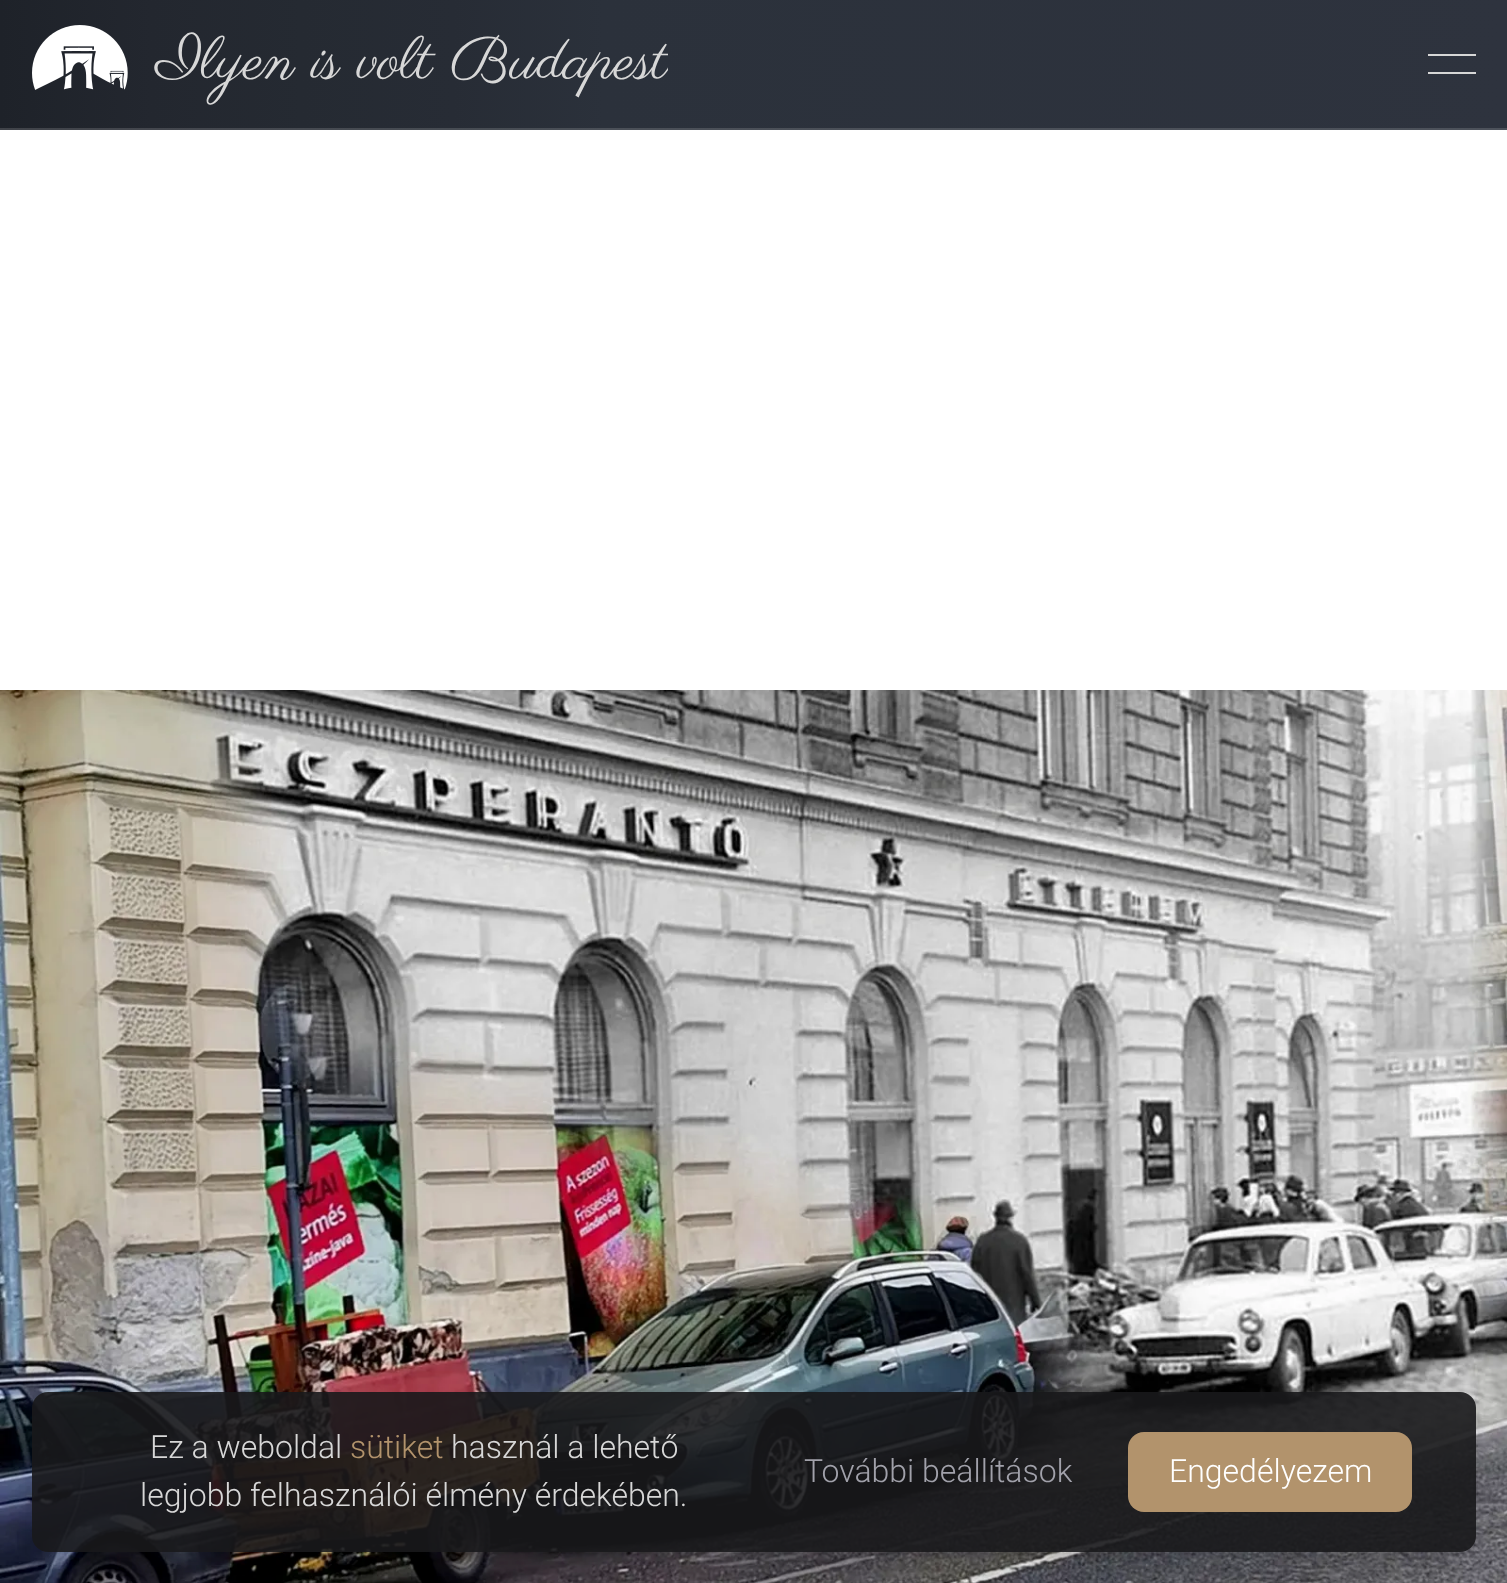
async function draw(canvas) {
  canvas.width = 1507
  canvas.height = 1583
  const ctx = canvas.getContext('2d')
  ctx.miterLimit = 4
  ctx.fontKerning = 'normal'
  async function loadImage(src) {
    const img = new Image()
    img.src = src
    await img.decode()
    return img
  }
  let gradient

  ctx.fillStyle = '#fff'
  ctx.fillRect(0, 0, 1507, 1583)
  gradient = ctx.createLinearGradient(0, 792, 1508, 792)
  gradient.addColorStop(0, '#1e2229')
  gradient.addColorStop(0.1, '#23272f')
  gradient.addColorStop(0.2, '#252a32')
  gradient.addColorStop(0.3, '#272c35')
  gradient.addColorStop(0.4, '#2b313b')
  gradient.addColorStop(1, '#2e333e')
  ctx.fillStyle = gradient
  ctx.fillRect(0, 0, 1507, 128)
  gradient = ctx.createLinearGradient(0, 792, 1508, 792)
  gradient.addColorStop(0, '#404349')
  gradient.addColorStop(0.1, '#44474e')
  gradient.addColorStop(0.2, '#464a51')
  gradient.addColorStop(0.3, '#474c53')
  gradient.addColorStop(0.4, '#4b5058')
  gradient.addColorStop(1, '#4d525b')
  ctx.fillStyle = gradient
  ctx.fillRect(0, 128, 1507, 2)
  ctx.drawImage(await loadImage('image0.png'), 32, 25, 96, 65)
  ctx.save()
  ctx.beginPath()
  ctx.rect(152, 20, 516, 88)
  ctx.clip()
  ctx.font = '60px Parisienne'
  ctx.fillStyle = '#d7d7d7'
  ctx.fillText('Ilyen is volt Budapest', 156, 78)
  ctx.restore()
  ctx.fillStyle = '#d7d7d7'
  ctx.fillRect(1428, 54, 48, 2)
  ctx.fillRect(1428, 72, 48, 2)
  ctx.drawImage(await loadImage('image1.png'), 0, 690, 1507, 893)
  ctx.save()
  ctx.beginPath()
  ctx.moveTo(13, 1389)
  ctx.lineTo(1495, 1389)
  ctx.lineTo(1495, 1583)
  ctx.lineTo(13, 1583)
  ctx.closePath()
  ctx.moveTo(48, 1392)
  ctx.lineTo(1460, 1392)
  ctx.bezierCurveTo(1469, 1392, 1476, 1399, 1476, 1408)
  ctx.lineTo(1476, 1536)
  ctx.bezierCurveTo(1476, 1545, 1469, 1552, 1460, 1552)
  ctx.lineTo(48, 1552)
  ctx.bezierCurveTo(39, 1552, 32, 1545, 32, 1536)
  ctx.lineTo(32, 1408)
  ctx.bezierCurveTo(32, 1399, 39, 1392, 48, 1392)
  ctx.closePath()
  ctx.clip('evenodd')
  ctx.fillStyle = '#0000001a'
  ctx.filter = 'blur(10px)'
  ctx.beginPath()
  ctx.roundRect(44, 1420, 1420, 136, 4)
  ctx.fill()
  ctx.filter = 'none'
  ctx.restore()
  ctx.save()
  ctx.beginPath()
  ctx.moveTo(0, 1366)
  ctx.lineTo(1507, 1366)
  ctx.lineTo(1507, 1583)
  ctx.lineTo(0, 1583)
  ctx.closePath()
  ctx.moveTo(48, 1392)
  ctx.lineTo(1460, 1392)
  ctx.bezierCurveTo(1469, 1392, 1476, 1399, 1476, 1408)
  ctx.lineTo(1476, 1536)
  ctx.bezierCurveTo(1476, 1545, 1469, 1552, 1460, 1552)
  ctx.lineTo(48, 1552)
  ctx.bezierCurveTo(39, 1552, 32, 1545, 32, 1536)
  ctx.lineTo(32, 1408)
  ctx.bezierCurveTo(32, 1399, 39, 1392, 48, 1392)
  ctx.closePath()
  ctx.clip('evenodd')
  ctx.fillStyle = '#0000001a'
  ctx.filter = 'blur(25px)'
  ctx.beginPath()
  ctx.roundRect(42, 1442, 1424, 140, 6)
  ctx.fill()
  ctx.filter = 'none'
  ctx.restore()
  ctx.fillStyle = '#18181be6'
  ctx.beginPath()
  ctx.roundRect(32, 1392, 1444, 160, 16)
  ctx.fill()
  ctx.font = '300 32px Roboto'
  ctx.fillStyle = '#d7d7d7'
  ctx.fillText('Ez a weboldal', 150, 1458)
  ctx.fillStyle = '#b2936c'
  ctx.fillText('sütiket', 350, 1458)
  ctx.fillStyle = '#d7d7d7'
  ctx.fillText('használ a lehető', 451, 1458)
  ctx.fillText('legjobb felhasználói élmény érdekében.', 140, 1506)
  ctx.fillStyle = '#a1a1aa'
  ctx.fillText('További beállítások', 804, 1482)
  ctx.fillStyle = '#b2936c'
  ctx.beginPath()
  ctx.roundRect(1128, 1432, 284, 80, 16)
  ctx.fill()
  ctx.fillStyle = '#fff'
  ctx.fillText('Engedélyezem', 1169, 1482)
}

draw(document.querySelector('canvas'))
